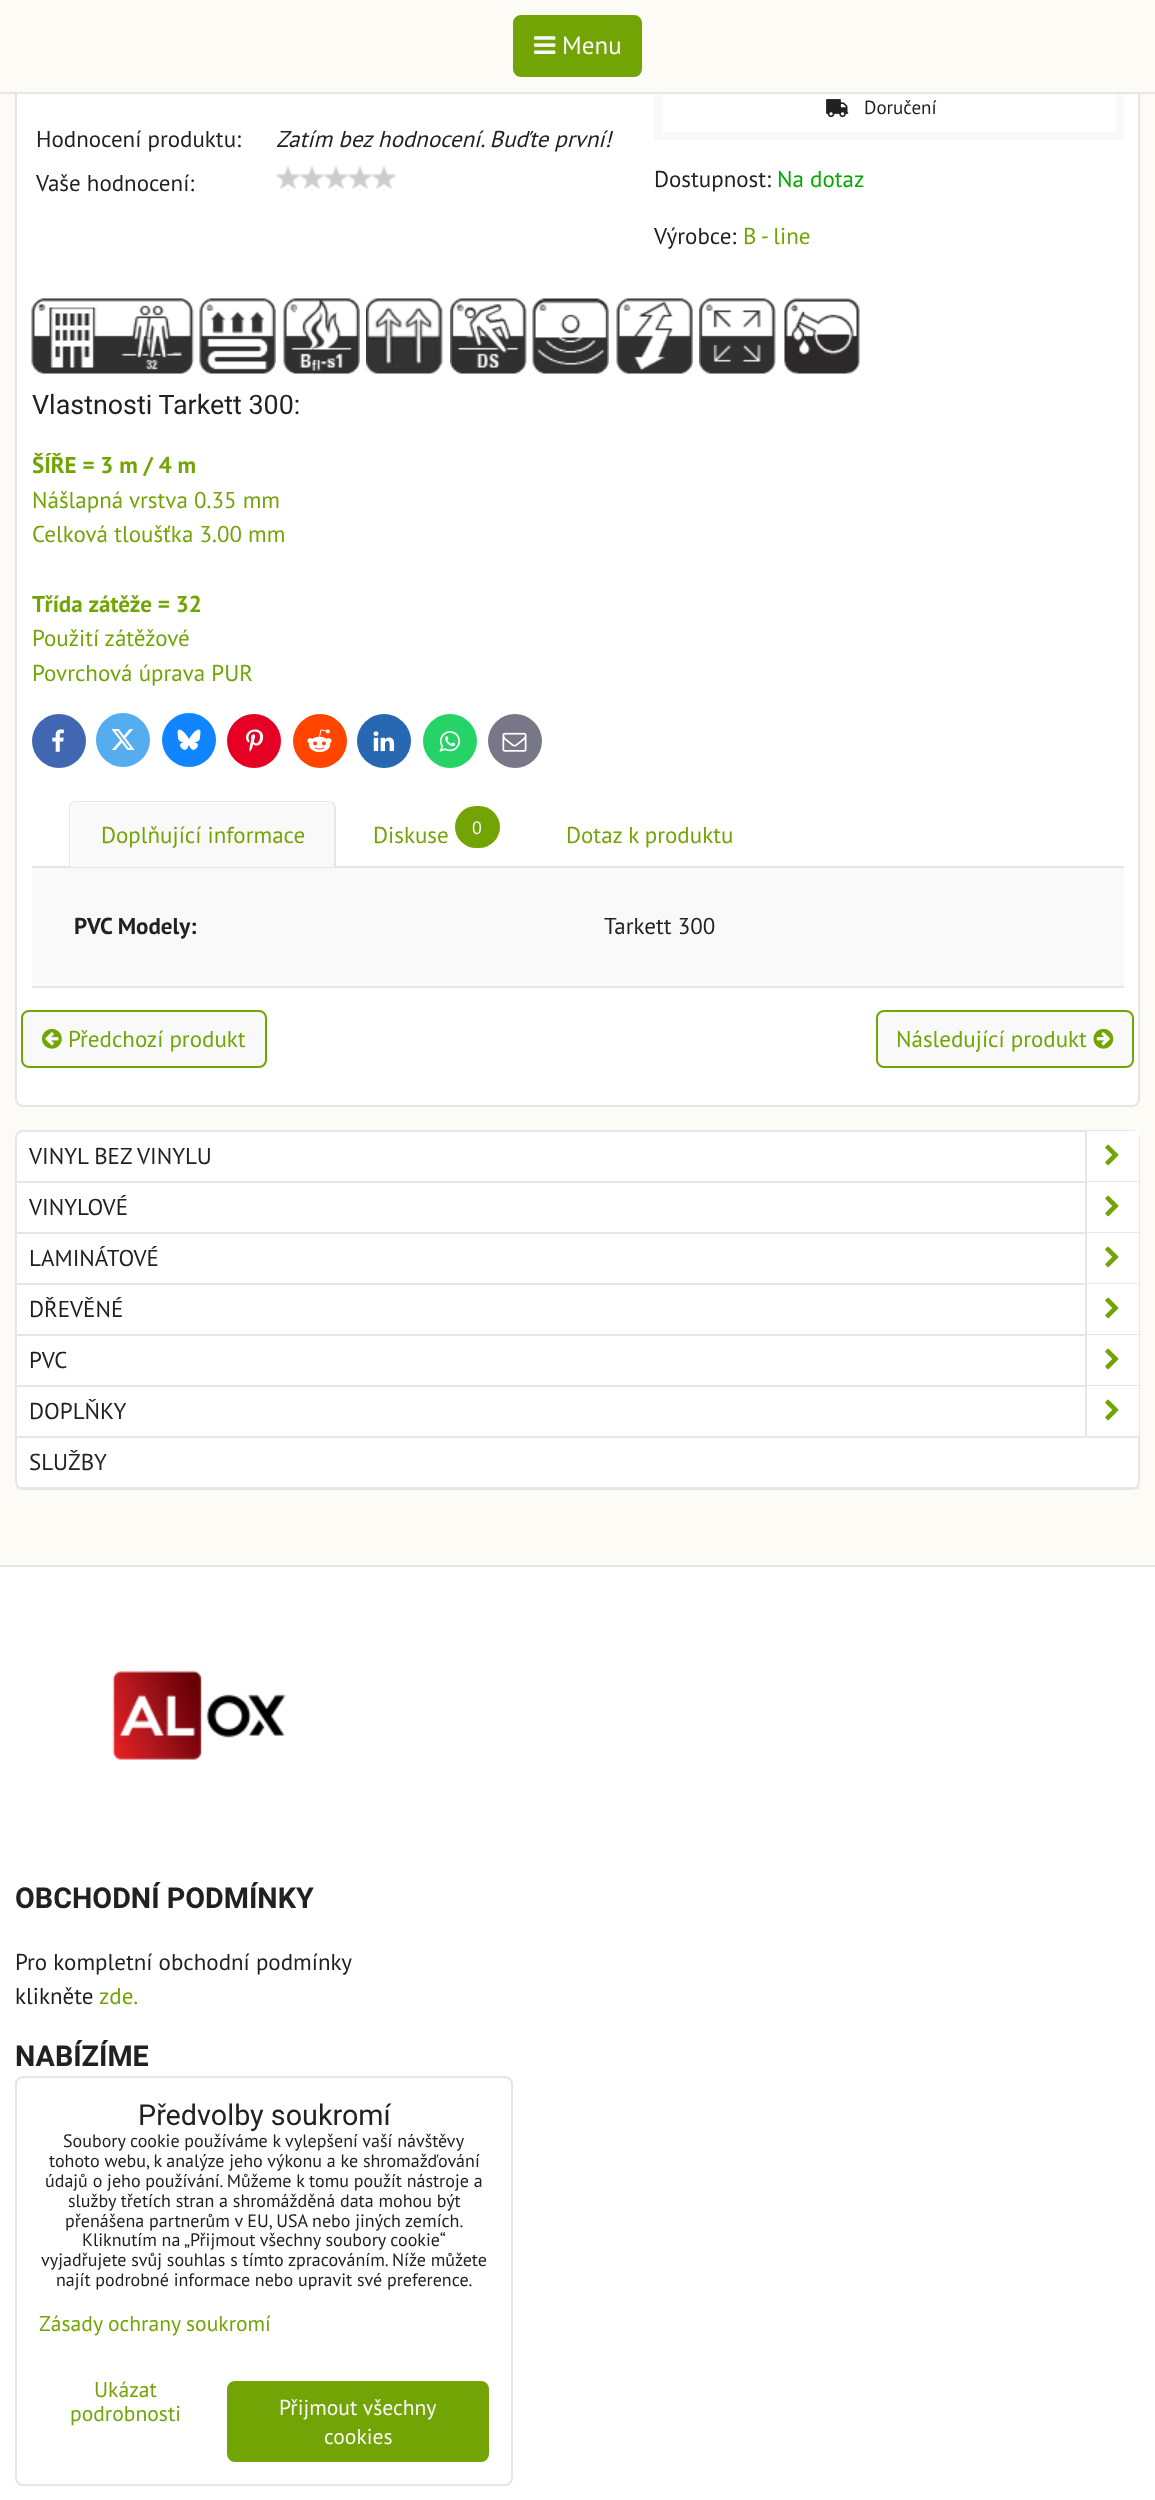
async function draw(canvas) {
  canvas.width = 1155
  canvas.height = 2500
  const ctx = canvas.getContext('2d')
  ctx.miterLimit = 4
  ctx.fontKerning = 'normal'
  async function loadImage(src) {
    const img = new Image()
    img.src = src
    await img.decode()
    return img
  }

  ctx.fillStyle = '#fcfbf6'
  ctx.fillRect(0, 0, 1155, 2500)
  ctx.fillStyle = '#fff'
  ctx.beginPath()
  ctx.roundRect(16, -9, 1123, 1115, 7)
  ctx.fill()
  ctx.strokeStyle = '#e6e6e6'
  ctx.lineWidth = 2
  ctx.stroke()
  ctx.strokeStyle = '#f9f9f9'
  ctx.lineWidth = 8
  ctx.strokeRect(658, -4, 462, 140)
  ctx.fillStyle = '#fcfbf6'
  ctx.fillRect(15, 0, 1125, 92)
  ctx.fillStyle = '#e6e6e6'
  ctx.fillRect(0, 92, 1155, 2)
  ctx.fillStyle = '#72a405'
  ctx.beginPath()
  ctx.roundRect(514, 16, 127, 60, 7)
  ctx.fill()
  ctx.strokeStyle = '#72a405'
  ctx.lineWidth = 2
  ctx.stroke()
  ctx.drawImage(await loadImage('image0.png'), 534, 36, 22, 18)
  ctx.font = '25px PT Sans'
  ctx.fillStyle = '#f9f9f9'
  ctx.fillText('Menu', 562, 54)
  ctx.font = '23px PT Sans'
  ctx.fillStyle = '#202123'
  ctx.fillText('Hodnocení produktu:', 36, 147)
  ctx.font = 'italic 23px PT Sans'
  ctx.fillText('Zatím bez hodnocení. Buďte první!', 276, 147)
  ctx.font = '23px PT Sans'
  ctx.fillText('Vaše hodnocení:', 36, 191)
  ctx.drawImage(await loadImage('image1.png'), 276, 166, 120, 25)
  ctx.drawImage(await loadImage('image2.png'), 826, 99, 23, 19)
  ctx.font = '19px PT Sans'
  ctx.fillText('Doručení', 864, 114)
  ctx.font = '23px PT Sans'
  ctx.fillText('Dostupnost:', 654, 187)
  ctx.fillStyle = '#00a800'
  ctx.fillText('Na dotaz', 777, 187)
  ctx.fillStyle = '#202123'
  ctx.fillText('Výrobce:', 654, 244)
  ctx.fillStyle = '#72a405'
  ctx.fillText('B - line', 743, 244)
  ctx.drawImage(await loadImage('image3.png'), 31, 298, 163, 76)
  ctx.drawImage(await loadImage('image4.png'), 199, 298, 77, 76)
  ctx.drawImage(await loadImage('image5.png'), 283, 298, 77, 76)
  ctx.drawImage(await loadImage('image6.png'), 366, 298, 77, 76)
  ctx.drawImage(await loadImage('image7.png'), 450, 298, 77, 76)
  ctx.drawImage(await loadImage('image8.png'), 532, 298, 77, 76)
  ctx.drawImage(await loadImage('image9.png'), 616, 298, 77, 76)
  ctx.drawImage(await loadImage('image10.png'), 699, 298, 77, 76)
  ctx.drawImage(await loadImage('image11.png'), 784, 298, 76, 76)
  ctx.font = '26.9px Roboto'
  ctx.fillStyle = '#202123'
  ctx.fillText('Vlastnosti Tarkett 300:', 32, 414)
  ctx.font = 'bold 23px PT Sans'
  ctx.fillStyle = '#72a405'
  ctx.fillText('ŠÍŘE = 3 m / 4 m', 32, 473)
  ctx.font = '23px PT Sans'
  ctx.fillText('Nášlapná vrstva 0.35 mm', 32, 508)
  ctx.fillText('Celková tloušťka 3.00 mm', 32, 542)
  ctx.font = 'bold 23px PT Sans'
  ctx.fillText('Třída zátěže = 32', 32, 612)
  ctx.font = '23px PT Sans'
  ctx.fillText('Použití zátěžové', 32, 646)
  ctx.fillText('Povrchová úprava PUR', 32, 681)
  ctx.fillStyle = '#4267b2'
  ctx.beginPath()
  ctx.arc(59, 741, 27, 0, 2 * Math.PI)
  ctx.fill()
  ctx.drawImage(await loadImage('image12.png'), 52, 729, 12, 23)
  ctx.fillStyle = '#55acee'
  ctx.beginPath()
  ctx.arc(123, 740, 27, 0, 2 * Math.PI)
  ctx.fill()
  ctx.drawImage(await loadImage('image13.png'), 111, 729, 24, 21)
  ctx.fillStyle = '#1185fe'
  ctx.beginPath()
  ctx.arc(189, 740, 27, 0, 2 * Math.PI)
  ctx.fill()
  ctx.drawImage(await loadImage('image14.png'), 177, 729, 24, 21)
  ctx.fillStyle = '#e60023'
  ctx.beginPath()
  ctx.arc(254, 741, 27, 0, 2 * Math.PI)
  ctx.fill()
  ctx.drawImage(await loadImage('image15.png'), 246, 729, 18, 23)
  ctx.fillStyle = '#ff4500'
  ctx.beginPath()
  ctx.arc(320, 741, 27, 0, 2 * Math.PI)
  ctx.fill()
  ctx.drawImage(await loadImage('image16.png'), 307, 729, 25, 24)
  ctx.fillStyle = '#2867b2'
  ctx.beginPath()
  ctx.arc(384, 741, 27, 0, 2 * Math.PI)
  ctx.fill()
  ctx.drawImage(await loadImage('image17.png'), 373, 731, 22, 21)
  ctx.fillStyle = '#25d366'
  ctx.beginPath()
  ctx.arc(450, 741, 27, 0, 2 * Math.PI)
  ctx.fill()
  ctx.drawImage(await loadImage('image18.png'), 439, 731, 22, 21)
  ctx.fillStyle = '#778'
  ctx.beginPath()
  ctx.arc(515, 741, 27, 0, 2 * Math.PI)
  ctx.fill()
  ctx.drawImage(await loadImage('image19.png'), 502, 732, 25, 20)
  ctx.fillStyle = '#e6e6e6'
  ctx.fillRect(32, 866, 1092, 2)
  ctx.fillStyle = '#f9f9f9'
  ctx.beginPath()
  ctx.roundRect(71, 803, 264, 64, [6, 6, 0, 0])
  ctx.fill()
  ctx.fillStyle = '#e6e6e6'
  ctx.beginPath()
  ctx.moveTo(76, 801)
  ctx.lineTo(328, 801)
  ctx.bezierCurveTo(333, 801, 336, 804, 336, 808)
  ctx.lineTo(336, 867)
  ctx.lineTo(69, 867)
  ctx.lineTo(69, 808)
  ctx.bezierCurveTo(69, 804, 72, 801, 76, 801)
  ctx.closePath()
  ctx.moveTo(76, 802)
  ctx.lineTo(328, 802)
  ctx.bezierCurveTo(332, 802, 334, 805, 334, 808)
  ctx.lineTo(334, 867)
  ctx.lineTo(70, 867)
  ctx.lineTo(70, 808)
  ctx.bezierCurveTo(70, 805, 73, 802, 76, 802)
  ctx.closePath()
  ctx.fill('evenodd')
  ctx.fillStyle = '#72a405'
  ctx.fillText('Doplňující informace', 101, 843)
  ctx.fillText('Diskuse', 373, 843)
  ctx.beginPath()
  ctx.roundRect(455, 806, 45, 42, 21)
  ctx.fill()
  ctx.font = '18px PT Sans'
  ctx.fillStyle = '#f9f9f9'
  ctx.fillText('0', 472, 834)
  ctx.font = '23px PT Sans'
  ctx.fillStyle = '#72a405'
  ctx.fillText('Dotaz k produktu', 566, 843)
  ctx.fillStyle = '#f9f9f9'
  ctx.fillRect(32, 868, 1092, 118)
  ctx.fillStyle = '#e6e6e6'
  ctx.fillRect(32, 986, 1092, 2)
  ctx.font = 'bold 23px PT Sans'
  ctx.fillStyle = '#202123'
  ctx.fillText('PVC Modely:', 74, 934)
  ctx.font = '23px PT Sans'
  ctx.fillText('Tarkett 300', 604, 934)
  ctx.fillStyle = '#f9f9f9'
  ctx.beginPath()
  ctx.roundRect(22, 1011, 244, 56, 7)
  ctx.fill()
  ctx.stroke()
  ctx.drawImage(await loadImage('image20.png'), 42, 1028, 20, 21)
  ctx.fillStyle = '#72a405'
  ctx.fillText('Předchozí produkt', 68, 1047)
  ctx.fillStyle = '#f9f9f9'
  ctx.beginPath()
  ctx.roundRect(877, 1011, 256, 56, 7)
  ctx.fill()
  ctx.stroke()
  ctx.fillStyle = '#72a405'
  ctx.fillText('Následující produkt', 896, 1047)
  ctx.drawImage(await loadImage('image21.png'), 1093, 1028, 21, 21)
  ctx.fillStyle = '#fff'
  ctx.beginPath()
  ctx.roundRect(16, 1131, 1123, 358, 7)
  ctx.fill()
  ctx.strokeStyle = '#e6e6e6'
  ctx.stroke()
  ctx.fillStyle = '#e6e6e6'
  ctx.fillRect(17, 1181, 1122, 2)
  ctx.fillStyle = '#202123'
  ctx.fillText('VINYL BEZ VINYLU', 29, 1164)
  ctx.fillStyle = '#fff'
  ctx.fillRect(1087, 1131, 52, 50)
  ctx.fillStyle = '#e6e6e6'
  ctx.fillRect(1085, 1131, 2, 50)
  ctx.drawImage(await loadImage('image22.png'), 1105, 1144, 14, 22)
  ctx.fillRect(17, 1232, 1122, 2)
  ctx.fillStyle = '#202123'
  ctx.fillText('VINYLOVÉ', 29, 1215)
  ctx.fillStyle = '#fff'
  ctx.fillRect(1087, 1182, 52, 50)
  ctx.fillStyle = '#e6e6e6'
  ctx.fillRect(1085, 1182, 2, 50)
  ctx.drawImage(await loadImage('image22.png'), 1105, 1195, 14, 22)
  ctx.fillRect(17, 1283, 1122, 2)
  ctx.fillStyle = '#202123'
  ctx.fillText('LAMINÁTOVÉ', 29, 1266)
  ctx.fillStyle = '#fff'
  ctx.fillRect(1087, 1233, 52, 50)
  ctx.fillStyle = '#e6e6e6'
  ctx.fillRect(1085, 1233, 2, 50)
  ctx.drawImage(await loadImage('image22.png'), 1105, 1246, 14, 22)
  ctx.fillRect(17, 1334, 1122, 2)
  ctx.fillStyle = '#202123'
  ctx.fillText('DŘEVĚNÉ', 29, 1317)
  ctx.fillStyle = '#fff'
  ctx.fillRect(1087, 1284, 52, 50)
  ctx.fillStyle = '#e6e6e6'
  ctx.fillRect(1085, 1284, 2, 50)
  ctx.drawImage(await loadImage('image22.png'), 1105, 1297, 14, 22)
  ctx.fillRect(17, 1385, 1122, 2)
  ctx.fillStyle = '#202123'
  ctx.fillText('PVC', 29, 1368)
  ctx.fillStyle = '#fff'
  ctx.fillRect(1087, 1335, 52, 50)
  ctx.fillStyle = '#e6e6e6'
  ctx.fillRect(1085, 1335, 2, 50)
  ctx.drawImage(await loadImage('image22.png'), 1105, 1348, 14, 22)
  ctx.fillRect(17, 1436, 1122, 2)
  ctx.fillStyle = '#202123'
  ctx.fillText('DOPLŇKY', 29, 1419)
  ctx.fillStyle = '#fff'
  ctx.fillRect(1087, 1386, 52, 50)
  ctx.fillStyle = '#e6e6e6'
  ctx.fillRect(1085, 1386, 2, 50)
  ctx.drawImage(await loadImage('image22.png'), 1105, 1399, 14, 22)
  ctx.fillRect(17, 1487, 1122, 2)
  ctx.fillStyle = '#202123'
  ctx.fillText('SLUŽBY', 29, 1470)
  ctx.fillStyle = '#fff'
  ctx.fillRect(0, 1567, 1155, 933)
  ctx.fillStyle = '#e6e6e6'
  ctx.fillRect(0, 1565, 1155, 2)
  ctx.drawImage(await loadImage('image23.png'), 112, 1670, 174, 90)
  ctx.font = 'bold 28.75px Roboto'
  ctx.fillStyle = '#202123'
  ctx.fillText('OBCHODNÍ PODMÍNKY', 15, 1908)
  ctx.font = '23px PT Sans'
  ctx.fillText('Pro kompletní obchodní podmínky', 15, 1970)
  ctx.fillText('klikněte', 15, 2004)
  ctx.fillStyle = '#72a405'
  ctx.fillText('zde.', 99, 2004)
  ctx.font = 'bold 28.75px Roboto'
  ctx.fillStyle = '#202123'
  ctx.fillText('NABÍZÍME', 15, 2066)
  ctx.beginPath()
  ctx.roundRect(16, 2077, 496, 408, 7)
  ctx.stroke()
  ctx.font = '28.75px Roboto'
  ctx.fillText('Předvolby soukromí', 138, 2125)
  ctx.font = '18px PT Sans'
  ctx.fillText('Soubory cookie používáme k vylepšení vaší návštěvy', 63, 2147)
  ctx.fillText('tohoto webu, k analýze jeho výkonu a ke shromažďování', 49, 2167)
  ctx.fillText('údajů o jeho používání. Můžeme k tomu použít nástroje a', 45, 2187)
  ctx.fillText('služby třetích stran a shromážděná data mohou být', 68, 2207)
  ctx.fillText('přenášena partnerům v EU, USA nebo jiných zemích.', 65, 2227)
  ctx.fillText('Kliknutím na „Přijmout všechny soubory cookie“', 82, 2246)
  ctx.fillText('vyjadřujete svůj souhlas s tímto zpracováním. Níže můžete', 41, 2266)
  ctx.fillText('najít podrobné informace nebo upravit své preference.', 56, 2286)
  ctx.font = '21.6px PT Sans'
  ctx.fillStyle = '#72a405'
  ctx.fillText('Zásady ochrany soukromí', 39, 2331)
  ctx.fillText('Ukázat', 94, 2397)
  ctx.fillText('podrobnosti', 70, 2421)
  ctx.beginPath()
  ctx.roundRect(228, 2382, 260, 79, 7)
  ctx.fill()
  ctx.strokeStyle = '#72a405'
  ctx.stroke()
  ctx.fillStyle = '#f9f9f9'
  ctx.fillText('Přijmout všechny', 279, 2415)
  ctx.fillText('cookies', 324, 2444)
}

draw(document.querySelector('canvas'))
